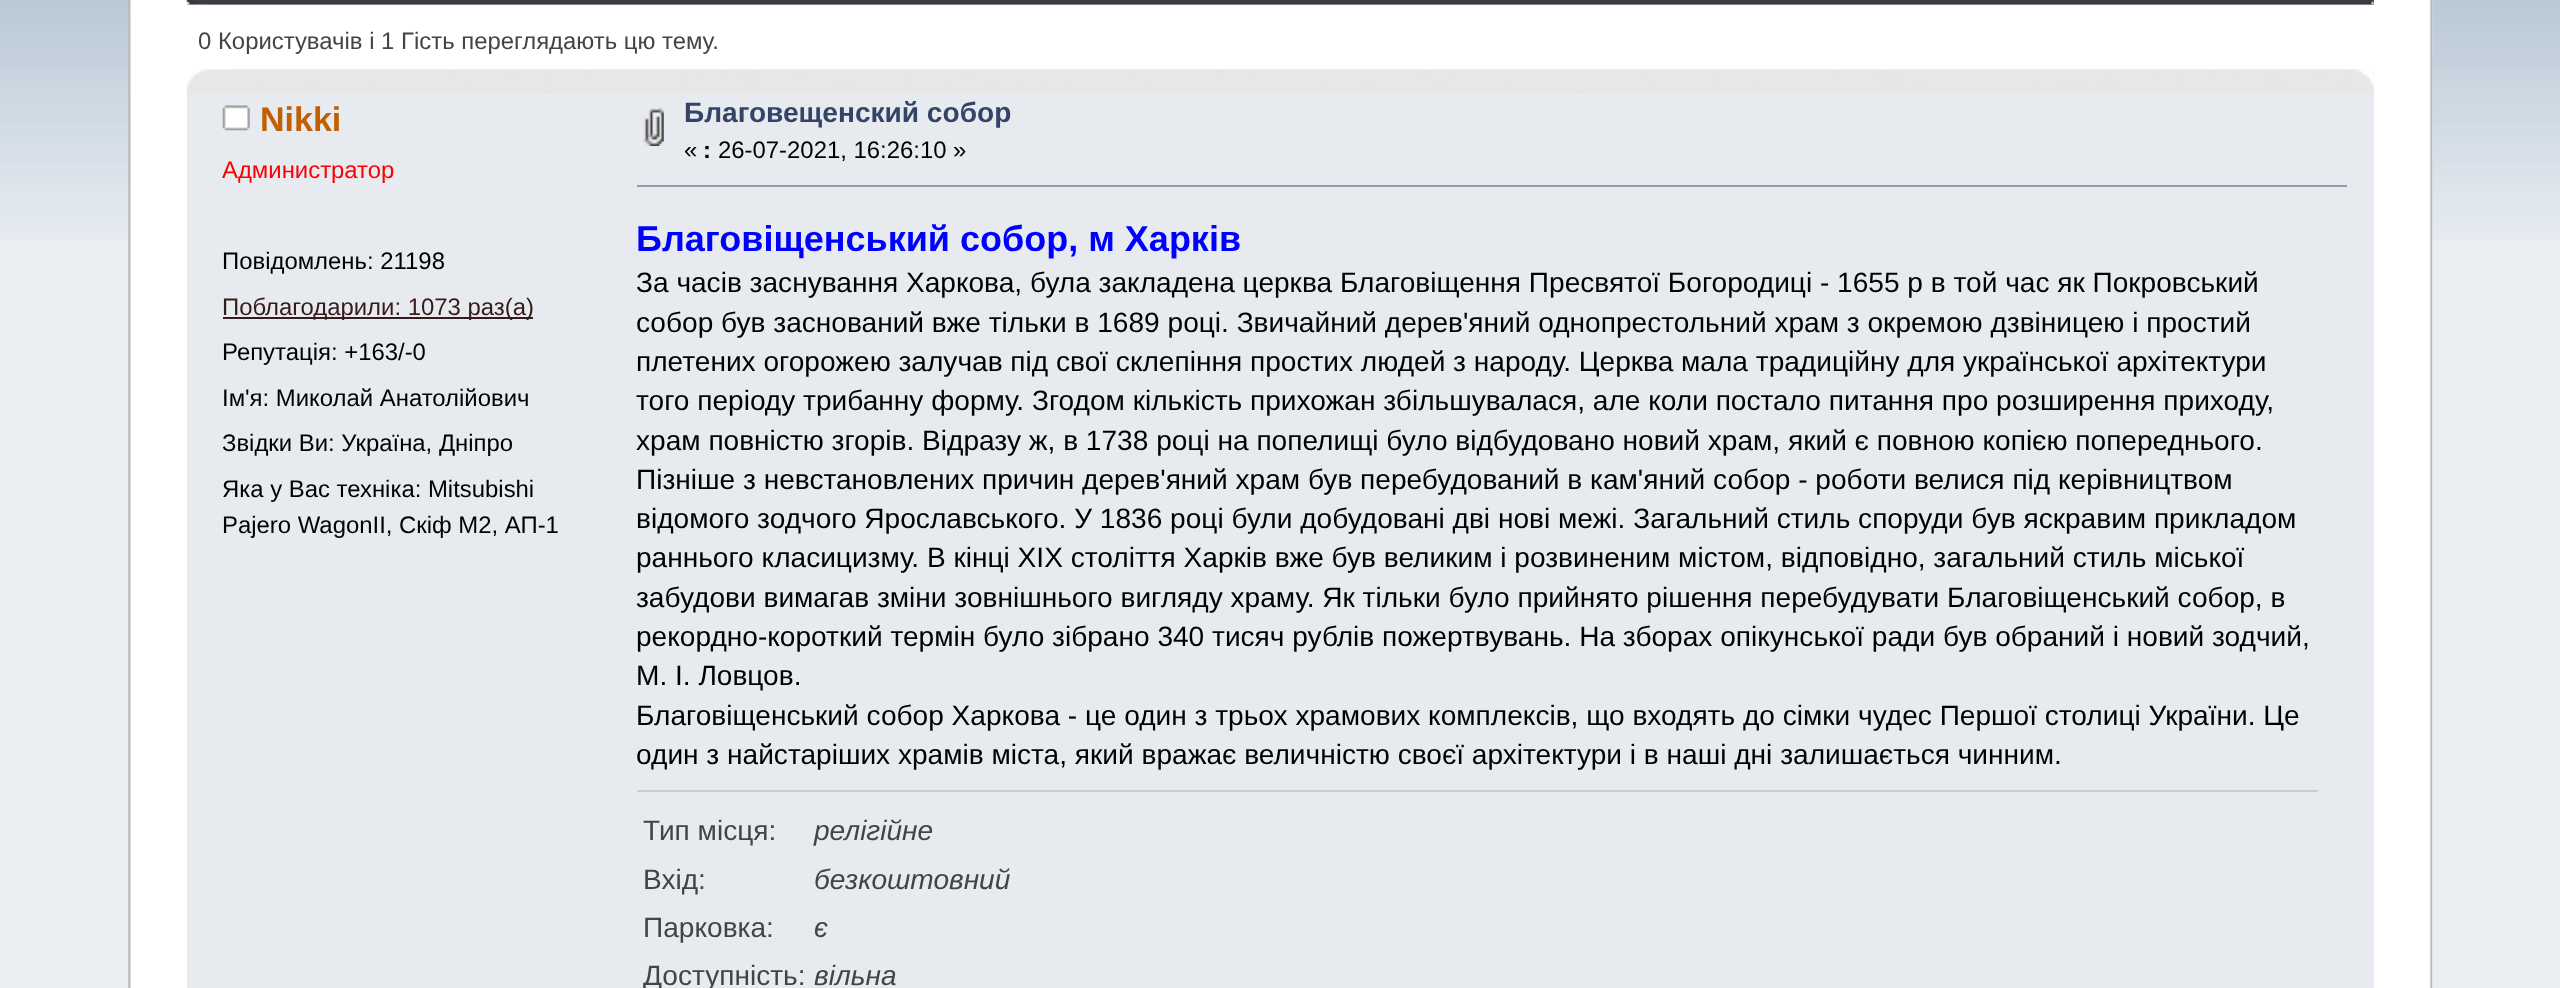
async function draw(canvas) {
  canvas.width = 2560
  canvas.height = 988
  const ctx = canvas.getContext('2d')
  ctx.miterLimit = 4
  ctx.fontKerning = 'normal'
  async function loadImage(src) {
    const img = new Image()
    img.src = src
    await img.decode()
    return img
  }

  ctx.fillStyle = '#e9eef2'
  ctx.fillRect(0, 0, 2560, 988)
  ctx.drawImage(await loadImage('image0.png'), 0, 0, 2560, 240)
  ctx.drawImage(await loadImage('image1.png'), 128, 0, 2305, 988)
  ctx.drawImage(await loadImage('image2.png'), 2429, 0, 4, 988)
  ctx.fillStyle = '#99abbf'
  ctx.fillRect(187, 0, 2187, 5)
  ctx.drawImage(await loadImage('image3.png'), 186, 0, 2188, 5)
  ctx.drawImage(await loadImage('image4.png'), 207, 0, 2167, 5)
  ctx.font = '23.9px Liberation Sans'
  ctx.fillStyle = '#444'
  ctx.fillText('0 Користувачів і 1 Гість переглядають цю тему.', 198, 49)
  ctx.fillStyle = '#e7eaef'
  ctx.fillRect(187, 70, 2187, 918)
  ctx.drawImage(await loadImage('image5.png'), 186, 69, 2188, 25)
  ctx.drawImage(await loadImage('image6.png'), 232, 69, 2142, 17)
  ctx.drawImage(await loadImage('image7.png'), 222, 105, 28, 26)
  ctx.font = 'bold 34px Liberation Sans'
  ctx.fillStyle = '#c06002'
  ctx.fillText('Nikki', 260, 131)
  ctx.font = '23.9px Liberation Sans'
  ctx.fillStyle = '#f00'
  ctx.fillText('Администратор', 222, 178)
  ctx.fillStyle = '#000'
  ctx.fillText('Повідомлень: 21198', 222, 269)
  ctx.fillStyle = '#351b1c'
  ctx.fillRect(223, 317, 310, 2)
  ctx.fillText('Поблагодарили: 1073 раз(а)', 222, 315)
  ctx.fillStyle = '#000'
  ctx.fillText('Репутація: +163/-0', 222, 360)
  ctx.fillText('Iм\'я: Миколай Анатолійович', 222, 406)
  ctx.fillText('Звідки Ви: Україна, Дніпро', 222, 451)
  ctx.fillText('Яка у Вас техніка: Mitsubishi', 222, 497)
  ctx.fillText('Pajero WagonII, Скіф М2, АП-1', 222, 533)
  ctx.drawImage(await loadImage('image8.png'), 643, 107, 21, 39)
  ctx.font = 'bold 28.08px Liberation Sans'
  ctx.fillStyle = '#346'
  ctx.fillText('Благовещенский собор', 684, 122)
  ctx.font = '23.9px Liberation Sans'
  ctx.fillStyle = '#000'
  ctx.fillText('«', 684, 158)
  ctx.font = 'bold 23.9px Liberation Sans'
  ctx.fillText(':', 703, 158)
  ctx.font = '23.9px Liberation Sans'
  ctx.fillText('26-07-2021, 16:26:10 »', 718, 158)
  ctx.fillStyle = '#99a'
  ctx.fillRect(637, 185, 1710, 2)
  ctx.font = 'bold 36px Liberation Sans'
  ctx.fillStyle = '#00f'
  ctx.fillText('Благовіщенський собор, м Харків', 636, 251)
  ctx.font = '28.08px Liberation Sans'
  ctx.fillStyle = '#000'
  ctx.fillText('За часів заснування Харкова, була закладена церква Благовіщення Пресвятої Богородиці - 1655 р в той час як Покровський', 636, 292)
  ctx.fillText('собор був заснований вже тільки в 1689 році. Звичайний дерев\'яний однопрестольний храм з окремою дзвіницею і простий', 636, 332)
  ctx.fillText('плетених огорожею залучав під свої склепіння простих людей з народу. Церква мала традиційну для української архітектури', 636, 371)
  ctx.fillText('того періоду трибанну форму. Згодом кількість прихожан збільшувалася, але коли постало питання про розширення приходу,', 636, 410)
  ctx.fillText('храм повністю згорів. Відразу ж, в 1738 році на попелищі було відбудовано новий храм, який є повною копією попереднього.', 636, 450)
  ctx.fillText('Пізніше з невстановлених причин дерев\'яний храм був перебудований в кам\'яний собор - роботи велися під керівництвом', 636, 489)
  ctx.fillText('відомого зодчого Ярославського. У 1836 році були добудовані дві нові межі. Загальний стиль споруди був яскравим прикладом', 636, 528)
  ctx.fillText('раннього класицизму. В кінці XIX століття Харків вже був великим і розвиненим містом, відповідно, загальний стиль міської', 636, 567)
  ctx.fillText('забудови вимагав зміни зовнішнього вигляду храму. Як тільки було прийнято рішення перебудувати Благовіщенський собор, в', 636, 607)
  ctx.fillText('рекордно-короткий термін було зібрано 340 тисяч рублів пожертвувань. На зборах опікунської ради був обраний і новий зодчий,', 636, 646)
  ctx.fillText('М. І. Ловцов.', 636, 685)
  ctx.fillText('Благовіщенський собор Харкова - це один з трьох храмових комплексів, що входять до сімки чудес Першої столиці України. Це', 636, 725)
  ctx.fillText('один з найстаріших храмів міста, який вражає величністю своєї архітектури і в наші дні залишається чинним.', 636, 764)
  ctx.fillStyle = '#ccc'
  ctx.fillRect(637, 790, 1681, 2)
  ctx.fillStyle = '#444'
  ctx.fillText('Тип місця:', 643, 840)
  ctx.font = 'italic 28.08px Liberation Sans'
  ctx.fillText('релігійне', 814, 840)
  ctx.font = '28.08px Liberation Sans'
  ctx.fillText('Вхід:', 643, 889)
  ctx.font = 'italic 28.08px Liberation Sans'
  ctx.fillText('безкоштовний', 814, 889)
  ctx.font = '28.08px Liberation Sans'
  ctx.fillText('Парковка:', 643, 937)
  ctx.font = 'italic 28.08px Liberation Sans'
  ctx.fillText('є', 814, 937)
  ctx.font = '28.08px Liberation Sans'
  ctx.fillText('Доступність:', 643, 985)
  ctx.font = 'italic 28.08px Liberation Sans'
  ctx.fillText('вільна', 814, 985)
}

draw(document.querySelector('canvas'))
